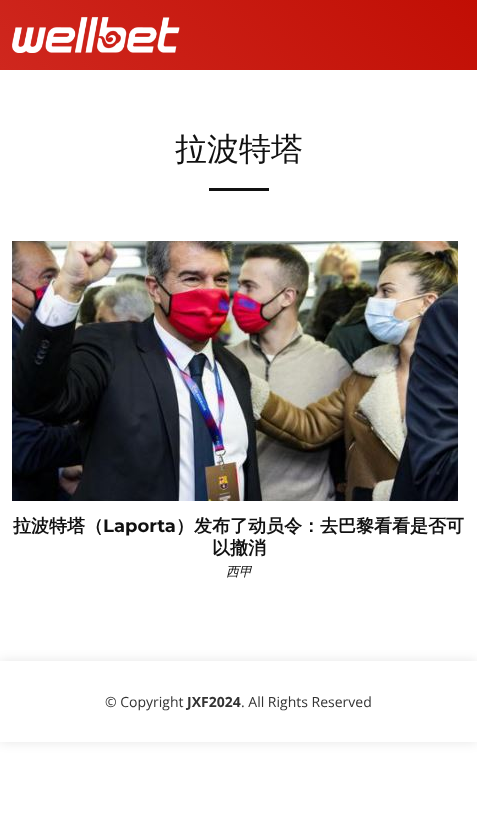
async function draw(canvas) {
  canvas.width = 477
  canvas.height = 828
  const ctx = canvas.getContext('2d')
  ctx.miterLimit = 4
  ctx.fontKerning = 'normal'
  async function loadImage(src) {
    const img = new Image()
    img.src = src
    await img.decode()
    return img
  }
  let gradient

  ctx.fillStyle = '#fff'
  ctx.fillRect(0, 0, 477, 828)
  gradient = ctx.createLinearGradient(102, 172, 375, -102)
  gradient.addColorStop(0, '#cf271e')
  gradient.addColorStop(1, '#c10e04')
  ctx.fillStyle = gradient
  ctx.fillRect(0, 0, 477, 70)
  ctx.drawImage(await loadImage('image0.png'), 12, 17, 168, 36)
  ctx.font = '500 32px WenQuanYi Zen Hei'
  ctx.fillStyle = '#111'
  ctx.fillText('拉波特塔', 175, 160)
  ctx.fillRect(209, 188, 60, 3)
  ctx.drawImage(await loadImage('image1.png'), 12, 241, 446, 260)
  ctx.font = 'bold 18px WenQuanYi Zen Hei'
  ctx.fillText('拉波特塔（', 13, 532)
  ctx.font = 'bold 18px Montserrat'
  ctx.fillText('Laporta', 103, 532)
  ctx.font = 'bold 18px WenQuanYi Zen Hei'
  ctx.fillText('）发布了动员令：去巴黎看看是否可', 176, 532)
  ctx.fillText('以撤消', 212, 554)
  ctx.font = 'italic 500 13px WenQuanYi Zen Hei'
  ctx.fillText('西甲', 226, 576)
  ctx.save()
  ctx.beginPath()
  ctx.moveTo(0, 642)
  ctx.lineTo(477, 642)
  ctx.lineTo(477, 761)
  ctx.lineTo(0, 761)
  ctx.closePath()
  ctx.moveTo(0, 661)
  ctx.lineTo(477, 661)
  ctx.lineTo(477, 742)
  ctx.lineTo(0, 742)
  ctx.closePath()
  ctx.clip('evenodd')
  ctx.fillStyle = '#0000001a'
  ctx.filter = 'blur(6px)'
  ctx.beginPath()
  ctx.rect(0, 661, 477, 81)
  ctx.fill()
  ctx.filter = 'none'
  ctx.restore()
  ctx.font = '14px Open Sans'
  ctx.fillStyle = '#333'
  ctx.fillText('© Copyright', 105, 707)
  ctx.font = 'bold 14px Open Sans'
  ctx.fillText('JXF2024', 187, 707)
  ctx.font = '14px Open Sans'
  ctx.fillText('. All Rights Reserved', 241, 707)
}

draw(document.querySelector('canvas'))
